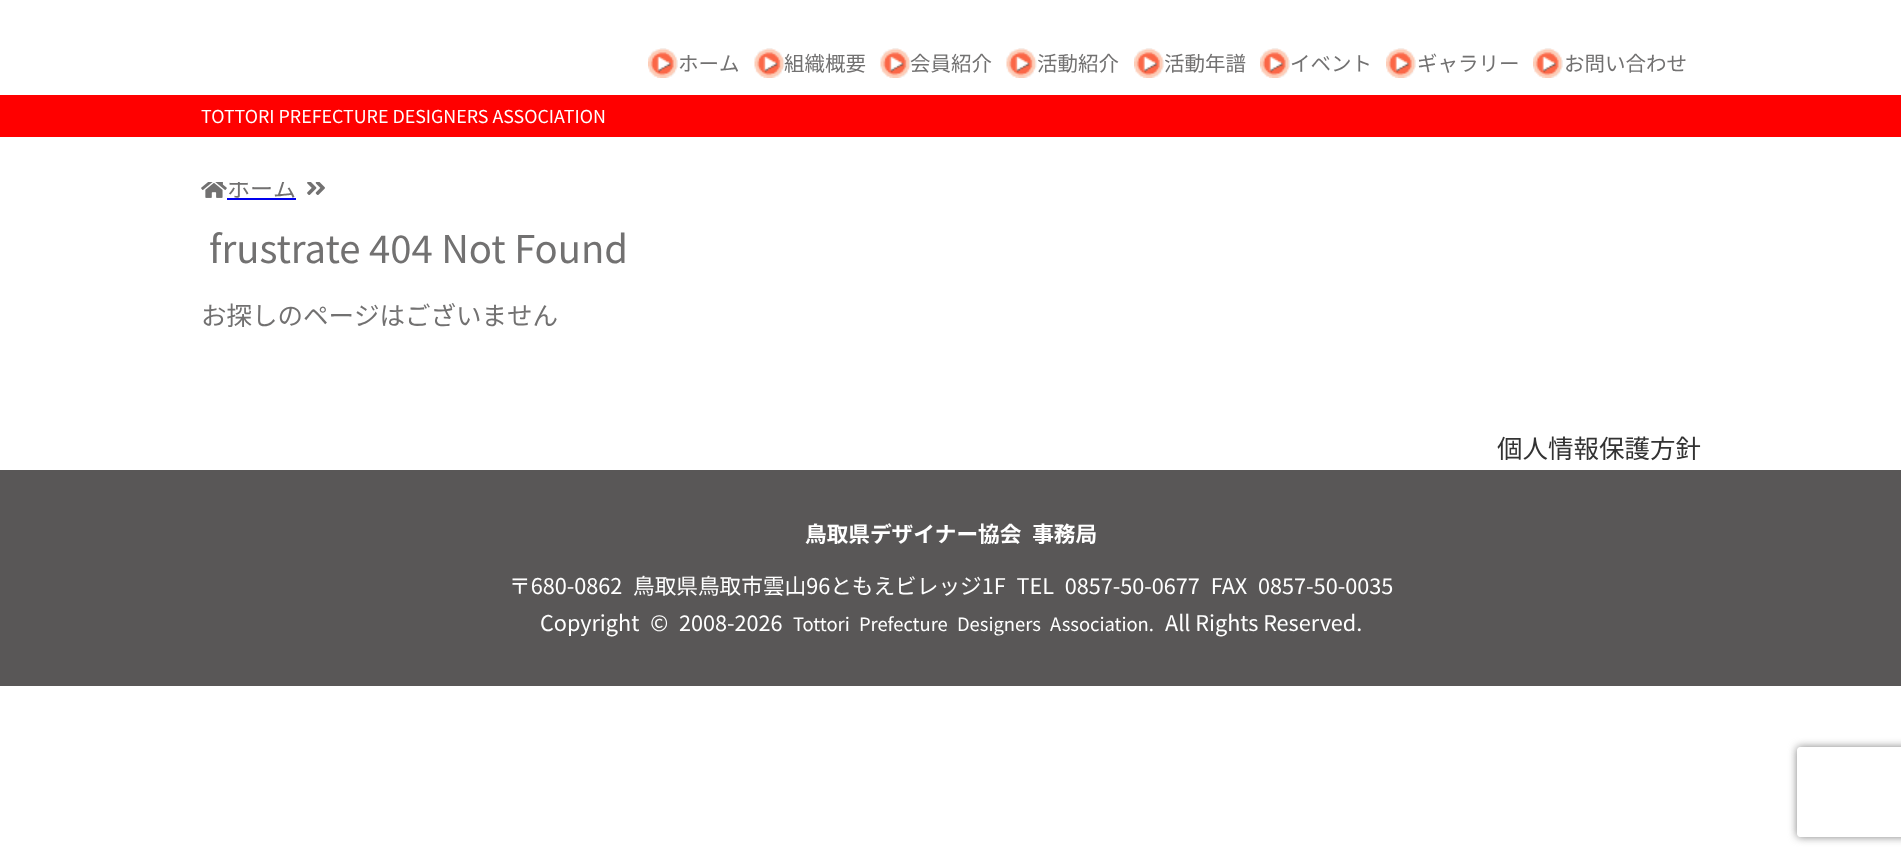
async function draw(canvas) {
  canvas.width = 1901
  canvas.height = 857
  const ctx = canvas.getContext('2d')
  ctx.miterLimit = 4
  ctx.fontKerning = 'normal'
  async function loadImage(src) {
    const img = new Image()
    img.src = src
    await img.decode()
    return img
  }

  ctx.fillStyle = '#fff'
  ctx.fillRect(0, 0, 1901, 857)
  ctx.drawImage(await loadImage('image0.png'), 648, 48, 30, 30)
  ctx.font = '20.5px Noto Sans JP'
  ctx.fillStyle = '#727171'
  ctx.fillText('ホーム', 678, 71)
  ctx.drawImage(await loadImage('image1.png'), 754, 48, 31, 30)
  ctx.fillText('組織概要', 784, 71)
  ctx.drawImage(await loadImage('image2.png'), 880, 48, 31, 30)
  ctx.fillText('会員紹介', 910, 71)
  ctx.drawImage(await loadImage('image2.png'), 1006, 48, 31, 30)
  ctx.fillText('活動紹介', 1037, 71)
  ctx.drawImage(await loadImage('image3.png'), 1134, 48, 30, 30)
  ctx.fillText('活動年譜', 1164, 71)
  ctx.drawImage(await loadImage('image4.png'), 1260, 48, 30, 30)
  ctx.fillText('イベント', 1290, 71)
  ctx.drawImage(await loadImage('image0.png'), 1386, 48, 30, 30)
  ctx.fillText('ギャラリー', 1417, 71)
  ctx.drawImage(await loadImage('image0.png'), 1533, 48, 30, 30)
  ctx.fillText('お問い合わせ', 1564, 71)
  ctx.fillStyle = '#f00'
  ctx.fillRect(0, 95, 1901, 42)
  ctx.font = '17.85px Noto Sans JP'
  ctx.fillStyle = '#fff'
  ctx.fillText('TOTTORI PREFECTURE DESIGNERS ASSOCIATION', 201, 123)
  ctx.drawImage(await loadImage('image5.png'), 201, 182, 26, 16)
  ctx.save()
  ctx.beginPath()
  ctx.rect(126, 182, 1650, 201)
  ctx.clip()
  ctx.font = '23px Noto Sans JP'
  ctx.fillStyle = '#727171'
  ctx.fillText('ホーム', 227, 197)
  ctx.restore()
  ctx.fillStyle = '#00e'
  ctx.fillRect(227, 198, 69, 2)
  ctx.drawImage(await loadImage('image6.png'), 307, 182, 18, 13)
  ctx.font = '38.25px Noto Sans JP'
  ctx.fillStyle = '#727171'
  ctx.fillText('frustrate 404 Not Found', 209, 263)
  ctx.font = '25.5px Noto Sans JP'
  ctx.fillText('お探しのページはございません', 201, 325)
  ctx.fillStyle = '#333'
  ctx.fillText('個人情報保護方針', 1497, 458)
  ctx.fillStyle = '#595757'
  ctx.fillRect(0, 470, 1901, 216)
  ctx.font = 'bold 21.65px Noto Sans JP'
  ctx.fillStyle = '#fff'
  ctx.fillText('⿃取県デザイナー協会 事務局', 805, 542)
  ctx.font = '21.65px Noto Sans JP'
  ctx.fillText('〒680-0862 ⿃取県⿃取市雲山96ともえビレッジ1F TEL 0857-50-0677 FAX 0857-50-0035', 509, 594)
  ctx.fillText('Copyright © 2008-2026', 540, 631)
  ctx.font = '18.4px Noto Sans JP'
  ctx.fillText('Tottori Prefecture Designers Association.', 793, 631)
  ctx.font = '21.65px Noto Sans JP'
  ctx.fillText('All Rights Reserved.', 1165, 631)
  ctx.save()
  ctx.beginPath()
  ctx.moveTo(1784, 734)
  ctx.lineTo(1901, 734)
  ctx.lineTo(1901, 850)
  ctx.lineTo(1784, 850)
  ctx.closePath()
  ctx.moveTo(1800, 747)
  ctx.lineTo(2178, 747)
  ctx.bezierCurveTo(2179.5, 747, 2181, 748.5, 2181, 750)
  ctx.lineTo(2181, 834)
  ctx.bezierCurveTo(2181, 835.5, 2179.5, 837, 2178, 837)
  ctx.lineTo(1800, 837)
  ctx.bezierCurveTo(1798.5, 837, 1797, 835.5, 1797, 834)
  ctx.lineTo(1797, 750)
  ctx.bezierCurveTo(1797, 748.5, 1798.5, 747, 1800, 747)
  ctx.closePath()
  ctx.clip('evenodd')
  ctx.fillStyle = '#808080'
  ctx.filter = 'blur(4px)'
  ctx.beginPath()
  ctx.roundRect(1797, 747, 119, 90, 3)
  ctx.fill()
  ctx.filter = 'none'
  ctx.restore()
}

draw(document.querySelector('canvas'))
